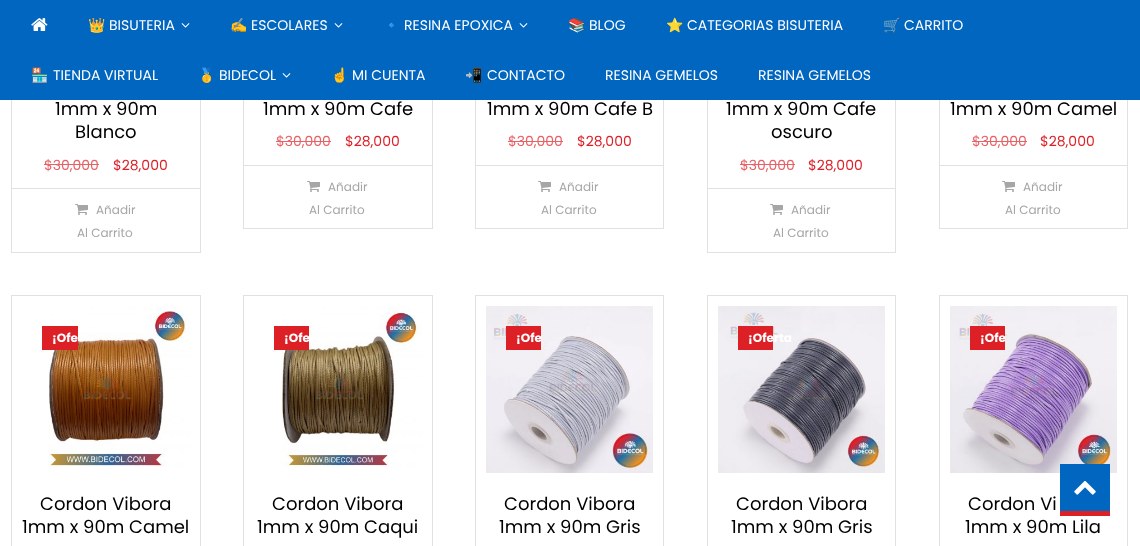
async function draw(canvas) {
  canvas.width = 1140
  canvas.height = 546
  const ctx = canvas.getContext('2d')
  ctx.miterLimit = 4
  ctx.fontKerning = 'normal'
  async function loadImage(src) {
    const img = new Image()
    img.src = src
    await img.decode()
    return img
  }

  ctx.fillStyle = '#fff'
  ctx.fillRect(0, 0, 1140, 546)
  ctx.strokeStyle = '#e1e1e1'
  ctx.strokeRect(11.5, -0.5, 189, 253)
  ctx.strokeRect(243.5, -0.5, 189, 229)
  ctx.strokeRect(475.5, -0.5, 188, 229)
  ctx.strokeRect(707.5, -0.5, 188, 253)
  ctx.strokeRect(939.5, -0.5, 188, 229)
  ctx.fillStyle = '#0166bf'
  ctx.fillRect(0, 0, 1140, 100)
  ctx.font = '14px Noto Color Emoji'
  ctx.fillStyle = '#fff'
  ctx.fillText('👑', 88, 30)
  ctx.font = '14px Poppins'
  ctx.fillText('BISUTERIA', 109, 30)
  ctx.drawImage(await loadImage('image0.png'), 181, 23, 9, 5)
  ctx.font = '14px Noto Color Emoji'
  ctx.fillText('✍', 230, 30)
  ctx.font = '14px Poppins'
  ctx.fillText('ESCOLARES', 251, 30)
  ctx.drawImage(await loadImage('image0.png'), 334, 23, 9, 5)
  ctx.font = '14px Noto Color Emoji'
  ctx.fillText('🔹', 383, 30)
  ctx.font = '14px Poppins'
  ctx.fillText('RESINA EPOXICA', 404, 30)
  ctx.drawImage(await loadImage('image0.png'), 519, 23, 9, 5)
  ctx.font = '14px Noto Color Emoji'
  ctx.fillText('📚', 568, 30)
  ctx.font = '14px Poppins'
  ctx.fillText('BLOG', 589, 30)
  ctx.font = '14px Noto Color Emoji'
  ctx.fillText('⭐', 666, 30)
  ctx.font = '14px Poppins'
  ctx.fillText('CATEGORIAS BISUTERIA', 687, 30)
  ctx.font = '14px Noto Color Emoji'
  ctx.fillText('🛒', 883, 30)
  ctx.font = '14px Poppins'
  ctx.fillText('CARRITO', 904, 30)
  ctx.font = '14px Noto Color Emoji'
  ctx.fillText('🏪', 31, 80)
  ctx.font = '14px Poppins'
  ctx.fillText('TIENDA VIRTUAL', 53, 80)
  ctx.font = '14px Noto Color Emoji'
  ctx.fillText('🥇', 198, 80)
  ctx.font = '14px Poppins'
  ctx.fillText('BIDECOL', 219, 80)
  ctx.drawImage(await loadImage('image0.png'), 282, 73, 9, 5)
  ctx.font = '14px Noto Color Emoji'
  ctx.fillText('☝', 331, 80)
  ctx.font = '14px Poppins'
  ctx.fillText('MI CUENTA', 352, 80)
  ctx.font = '14px Noto Color Emoji'
  ctx.fillText('📲', 465, 80)
  ctx.font = '14px Poppins'
  ctx.fillText('CONTACTO', 487, 80)
  ctx.fillText('RESINA GEMELOS', 605, 80)
  ctx.fillText('RESINA GEMELOS', 758, 80)
  ctx.drawImage(await loadImage('image1.png'), 31, 18, 17, 13)
  ctx.font = '18px Poppins'
  ctx.fillStyle = '#000'
  ctx.fillText('1mm x 90m', 55, 115)
  ctx.fillText('Blanco', 75, 138)
  ctx.font = '14px Poppins'
  ctx.fillStyle = '#e76267'
  ctx.fillText('$30,000', 44, 170)
  ctx.fillRect(44, 164, 55, 1)
  ctx.fillStyle = '#dd1f26'
  ctx.fillText('$28,000', 113, 170)
  ctx.fillStyle = '#e1e1e1'
  ctx.fillRect(12, 188, 188, 1)
  ctx.drawImage(await loadImage('image2.png'), 75, 204, 13, 11)
  ctx.font = '12px Poppins'
  ctx.fillStyle = '#a6a6a6'
  ctx.fillText('Añadir', 96, 214)
  ctx.fillText('Al Carrito', 77, 237)
  ctx.font = '18px Poppins'
  ctx.fillStyle = '#000'
  ctx.fillText('1mm x 90m Cafe', 263, 115)
  ctx.font = '14px Poppins'
  ctx.fillStyle = '#e76267'
  ctx.fillText('$30,000', 276, 146)
  ctx.fillRect(276, 141, 55, 1)
  ctx.fillStyle = '#dd1f26'
  ctx.fillText('$28,000', 345, 146)
  ctx.fillStyle = '#e1e1e1'
  ctx.fillRect(244, 165, 188, 1)
  ctx.drawImage(await loadImage('image2.png'), 307, 181, 13, 11)
  ctx.font = '12px Poppins'
  ctx.fillStyle = '#a6a6a6'
  ctx.fillText('Añadir', 328, 191)
  ctx.fillText('Al Carrito', 309, 214)
  ctx.font = '18px Poppins'
  ctx.fillStyle = '#000'
  ctx.fillText('1mm x 90m Cafe B', 487, 115)
  ctx.font = '14px Poppins'
  ctx.fillStyle = '#e76267'
  ctx.fillText('$30,000', 508, 146)
  ctx.fillRect(508, 141, 55, 1)
  ctx.fillStyle = '#dd1f26'
  ctx.fillText('$28,000', 577, 146)
  ctx.fillStyle = '#e1e1e1'
  ctx.fillRect(476, 165, 187, 1)
  ctx.drawImage(await loadImage('image2.png'), 538, 181, 13, 11)
  ctx.font = '12px Poppins'
  ctx.fillStyle = '#a6a6a6'
  ctx.fillText('Añadir', 559, 191)
  ctx.fillText('Al Carrito', 541, 214)
  ctx.font = '18px Poppins'
  ctx.fillStyle = '#000'
  ctx.fillText('1mm x 90m Cafe', 726, 115)
  ctx.fillText('oscuro', 771, 138)
  ctx.font = '14px Poppins'
  ctx.fillStyle = '#e76267'
  ctx.fillText('$30,000', 740, 170)
  ctx.fillRect(740, 164, 55, 1)
  ctx.fillStyle = '#dd1f26'
  ctx.fillText('$28,000', 808, 170)
  ctx.fillStyle = '#e1e1e1'
  ctx.fillRect(708, 188, 187, 1)
  ctx.drawImage(await loadImage('image2.png'), 770, 204, 13, 11)
  ctx.font = '12px Poppins'
  ctx.fillStyle = '#a6a6a6'
  ctx.fillText('Añadir', 791, 214)
  ctx.fillText('Al Carrito', 773, 237)
  ctx.font = '18px Poppins'
  ctx.fillStyle = '#000'
  ctx.fillText('1mm x 90m Camel', 950, 115)
  ctx.font = '14px Poppins'
  ctx.fillStyle = '#e76267'
  ctx.fillText('$30,000', 972, 146)
  ctx.fillRect(972, 141, 55, 1)
  ctx.fillStyle = '#dd1f26'
  ctx.fillText('$28,000', 1040, 146)
  ctx.fillStyle = '#e1e1e1'
  ctx.fillRect(940, 165, 187, 1)
  ctx.drawImage(await loadImage('image2.png'), 1002, 181, 13, 11)
  ctx.font = '12px Poppins'
  ctx.fillStyle = '#a6a6a6'
  ctx.fillText('Añadir', 1023, 191)
  ctx.fillText('Al Carrito', 1005, 214)
  ctx.strokeRect(11.5, 295.5, 189, 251)
  ctx.drawImage(await loadImage('image3.png'), 49, 306, 141, 161)
  ctx.fillStyle = '#dd1f26'
  ctx.fillRect(42, 326, 36, 24)
  ctx.font = 'bold 12px Poppins'
  ctx.fillStyle = '#fff'
  ctx.fillText('¡Ofe', 52, 342)
  ctx.font = '18px Poppins'
  ctx.fillStyle = '#000'
  ctx.fillText('Cordon Vibora', 40, 510)
  ctx.fillText('1mm x 90m Camel', 22, 533)
  ctx.strokeRect(243.5, 295.5, 189, 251)
  ctx.drawImage(await loadImage('image4.png'), 281, 306, 141, 161)
  ctx.fillStyle = '#dd1f26'
  ctx.fillRect(274, 326, 35, 24)
  ctx.font = 'bold 12px Poppins'
  ctx.fillStyle = '#fff'
  ctx.fillText('¡Ofe', 284, 342)
  ctx.font = '18px Poppins'
  ctx.fillStyle = '#000'
  ctx.fillText('Cordon Vibora', 272, 510)
  ctx.fillText('1mm x 90m Caqui', 257, 533)
  ctx.strokeRect(475.5, 295.5, 188, 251)
  ctx.drawImage(await loadImage('image5.png'), 486, 306, 167, 167)
  ctx.fillStyle = '#dd1f26'
  ctx.fillRect(506, 326, 35, 24)
  ctx.font = 'bold 12px Poppins'
  ctx.fillStyle = '#fff'
  ctx.fillText('¡Ofe', 516, 342)
  ctx.font = '18px Poppins'
  ctx.fillStyle = '#000'
  ctx.fillText('Cordon Vibora', 504, 510)
  ctx.fillText('1mm x 90m Gris', 499, 533)
  ctx.strokeRect(707.5, 295.5, 188, 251)
  ctx.drawImage(await loadImage('image6.png'), 718, 306, 167, 167)
  ctx.fillStyle = '#dd1f26'
  ctx.fillRect(738, 326, 35, 24)
  ctx.font = 'bold 12px Poppins'
  ctx.fillStyle = '#fff'
  ctx.fillText('¡Oferta', 748, 342)
  ctx.font = '18px Poppins'
  ctx.fillStyle = '#000'
  ctx.fillText('Cordon Vibora', 736, 510)
  ctx.fillText('1mm x 90m Gris', 731, 533)
  ctx.strokeRect(939.5, 295.5, 188, 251)
  ctx.drawImage(await loadImage('image7.png'), 950, 306, 167, 167)
  ctx.fillStyle = '#dd1f26'
  ctx.fillRect(970, 326, 35, 24)
  ctx.font = 'bold 12px Poppins'
  ctx.fillStyle = '#fff'
  ctx.fillText('¡Ofe', 980, 342)
  ctx.font = '18px Poppins'
  ctx.fillStyle = '#000'
  ctx.fillText('Cordon Vi', 968, 510)
  ctx.fillText('1mm x 90m Lila', 965, 533)
  ctx.fillStyle = '#0166bf'
  ctx.fillRect(1060, 464, 50, 47)
  ctx.fillStyle = '#dd1f26'
  ctx.fillRect(1060, 511, 50, 5)
  ctx.drawImage(await loadImage('image8.png'), 1074, 480, 22, 15)
}

draw(document.querySelector('canvas'))
